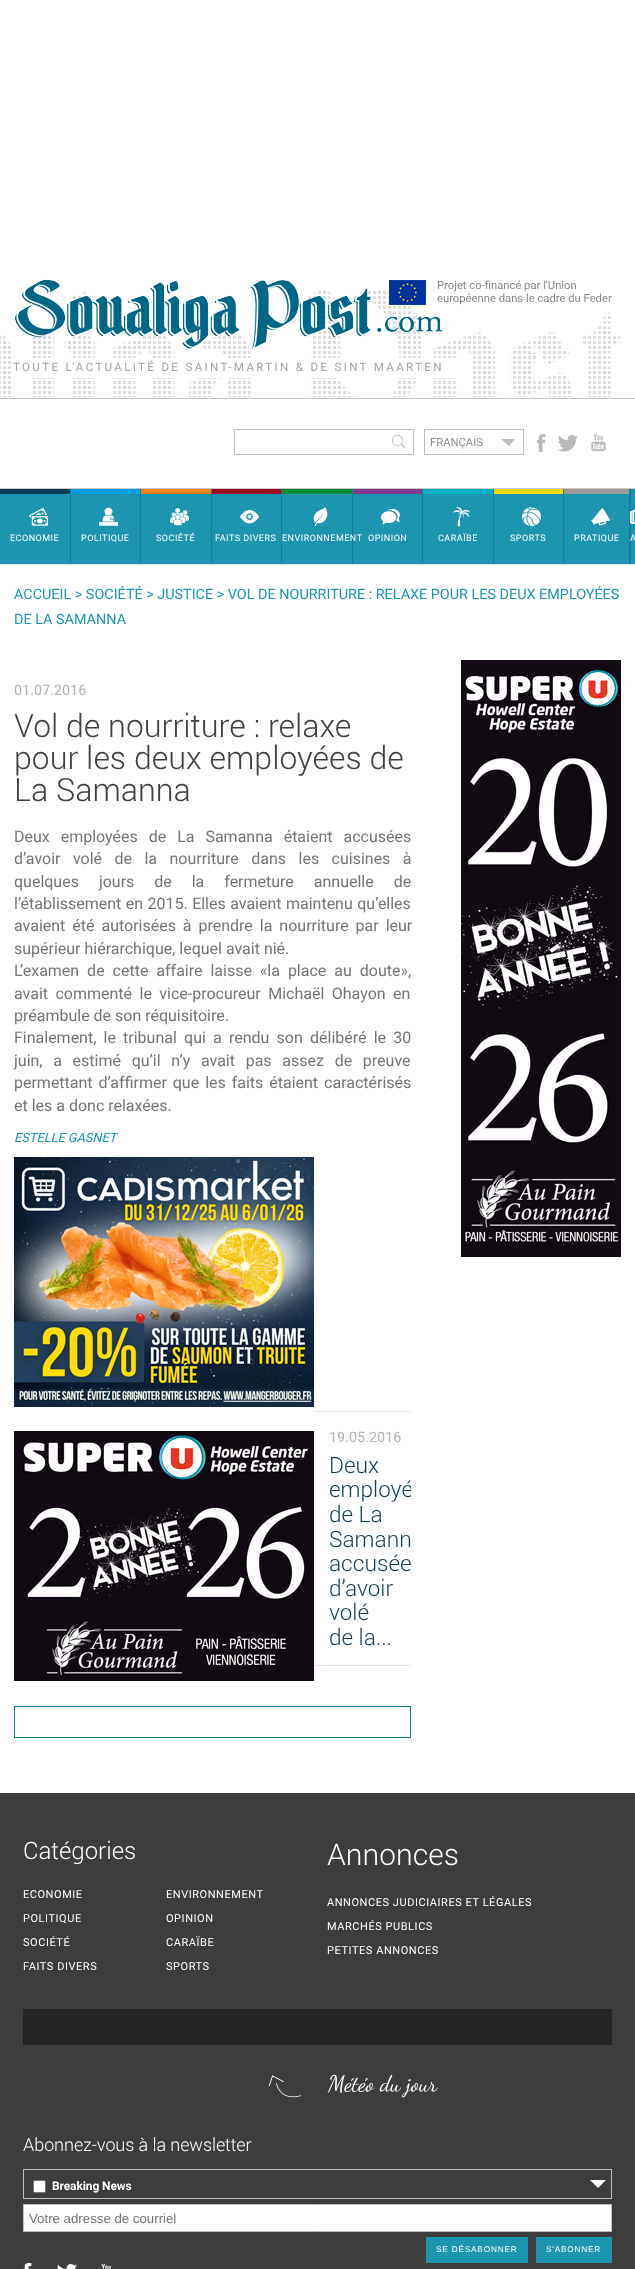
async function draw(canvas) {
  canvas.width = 635
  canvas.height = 2269
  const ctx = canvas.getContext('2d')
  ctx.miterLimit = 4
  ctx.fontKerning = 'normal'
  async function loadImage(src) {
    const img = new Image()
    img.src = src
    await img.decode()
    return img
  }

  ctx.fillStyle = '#fff'
  ctx.fillRect(0, 0, 635, 2269)
  ctx.drawImage(await loadImage('image0.png'), 0, 291, 621, 106)
  ctx.drawImage(await loadImage('image1.png'), 15, 279, 428, 70)
  ctx.fillStyle = '#c9c9c9'
  ctx.fillRect(0, 398, 635, 1)
  ctx.fillRect(0, 488, 635, 1)
  ctx.drawImage(await loadImage('image2.png'), 389, 280, 37, 25)
  ctx.font = '11.25px Roboto'
  ctx.fillStyle = '#888'
  ctx.fillText('Projet co-financé par l\'Union', 437, 289)
  ctx.fillText('européenne dans le cadre du Feder', 437, 302)
  ctx.strokeStyle = '#bebebe'
  ctx.strokeRect(234.5, 429.5, 179, 25)
  ctx.drawImage(await loadImage('image3.png'), 392, 435, 13, 13)
  ctx.strokeRect(424.5, 429.5, 99, 25)
  ctx.fillStyle = '#919191'
  ctx.fillText('FRANÇAIS', 430, 446)
  ctx.fillStyle = '#bebebe'
  ctx.beginPath()
  ctx.moveTo(501, 439)
  ctx.lineTo(515, 439)
  ctx.lineTo(509, 446)
  ctx.closePath()
  ctx.fill()
  ctx.drawImage(await loadImage('image4.png'), 537, 434, 9, 18)
  ctx.drawImage(await loadImage('image5.png'), 558, 435, 19, 17)
  ctx.drawImage(await loadImage('image6.png'), 591, 434, 15, 17)
  ctx.fillStyle = '#fff'
  ctx.fillRect(13, 358, 443, 20)
  ctx.letterSpacing = '2.32px'
  ctx.font = '11.6px Roboto'
  ctx.fillStyle = '#a4a4a4'
  ctx.fillText('TOUTE L\'ACTUALITÉ DE SAINT-MARTIN & DE SINT MAARTEN', 13, 371)
  ctx.fillStyle = '#1e95b0'
  ctx.fillRect(0, 489, 635, 75)
  ctx.fillStyle = '#197c92'
  ctx.fillRect(70, 489, 1, 75)
  ctx.fillStyle = '#073d59'
  ctx.fillRect(0, 489, 70, 5)
  ctx.drawImage(await loadImage('image7.png'), 29, 507, 19, 19)
  ctx.letterSpacing = '0.5px'
  ctx.font = '9px Roboto'
  ctx.fillStyle = '#fff'
  ctx.fillText('ECONOMIE', 10, 541)
  ctx.fillStyle = '#197c92'
  ctx.fillRect(140, 489, 1, 75)
  ctx.fillStyle = '#00a0e0'
  ctx.fillRect(71, 489, 69, 5)
  ctx.drawImage(await loadImage('image8.png'), 99, 507, 19, 19)
  ctx.fillStyle = '#fff'
  ctx.fillText('POLITIQUE', 81, 541)
  ctx.fillStyle = '#197c92'
  ctx.fillRect(211, 489, 1, 75)
  ctx.fillStyle = '#ed841b'
  ctx.fillRect(141, 489, 70, 5)
  ctx.drawImage(await loadImage('image9.png'), 170, 508, 19, 18)
  ctx.fillStyle = '#fff'
  ctx.fillText('SOCIÉTÉ', 156, 541)
  ctx.fillStyle = '#197c92'
  ctx.fillRect(281, 489, 1, 75)
  ctx.fillStyle = '#990e23'
  ctx.fillRect(212, 489, 69, 5)
  ctx.drawImage(await loadImage('image10.png'), 240, 510, 19, 14)
  ctx.fillStyle = '#fff'
  ctx.fillText('FAITS DIVERS', 215, 541)
  ctx.fillStyle = '#197c92'
  ctx.fillRect(352, 489, 1, 75)
  ctx.fillStyle = '#008e35'
  ctx.fillRect(282, 489, 70, 5)
  ctx.drawImage(await loadImage('image11.png'), 313, 507, 15, 20)
  ctx.fillStyle = '#fff'
  ctx.fillText('ENVIRONNEMENT', 282, 541)
  ctx.fillStyle = '#197c92'
  ctx.fillRect(422, 489, 1, 75)
  ctx.fillStyle = '#833a8c'
  ctx.fillRect(353, 489, 69, 5)
  ctx.drawImage(await loadImage('image12.png'), 381, 508, 19, 17)
  ctx.fillStyle = '#fff'
  ctx.fillText('OPINION', 368, 541)
  ctx.fillStyle = '#197c92'
  ctx.fillRect(493, 489, 1, 75)
  ctx.fillStyle = '#00b1c3'
  ctx.fillRect(423, 489, 70, 5)
  ctx.drawImage(await loadImage('image13.png'), 453, 507, 17, 20)
  ctx.fillStyle = '#fff'
  ctx.fillText('CARAÏBE', 438, 541)
  ctx.fillStyle = '#197c92'
  ctx.fillRect(563, 489, 1, 75)
  ctx.fillStyle = '#ffd800'
  ctx.fillRect(494, 489, 69, 5)
  ctx.drawImage(await loadImage('image14.png'), 522, 507, 19, 20)
  ctx.fillStyle = '#fff'
  ctx.fillText('SPORTS', 510, 541)
  ctx.fillStyle = '#197c92'
  ctx.fillRect(629, 489, 2, 75)
  ctx.fillStyle = '#9a9a9a'
  ctx.fillRect(564, 489, 65, 5)
  ctx.drawImage(await loadImage('image15.png'), 591, 508, 19, 18)
  ctx.fillStyle = '#fff'
  ctx.fillText('PRATIQUE', 574, 541)
  ctx.drawImage(await loadImage('image16.png'), 630, 509, 5, 15)
  ctx.fillText('A', 630, 541)
  ctx.fillStyle = '#e1e1e1'
  ctx.fillRect(0, 564, 635, 1)
  ctx.letterSpacing = '0px'
  ctx.font = '14.4px Roboto'
  ctx.fillStyle = '#1e95b0'
  ctx.fillText('ACCUEIL > SOCIÉTÉ > JUSTICE > VOL DE NOURRITURE : RELAXE POUR LES DEUX EMPLOYÉES', 14, 599)
  ctx.fillText('DE LA SAMANNA', 14, 624)
  ctx.fillStyle = '#b3b3b3'
  ctx.fillText('01.07.2016', 14, 695)
  ctx.font = '300 32px Roboto'
  ctx.fillStyle = '#414141'
  ctx.fillText('Vol de nourriture : relaxe', 14, 737)
  ctx.fillText('pour les deux employées de', 14, 769)
  ctx.fillText('La Samanna', 14, 801)
  ctx.wordSpacing = '7px'
  ctx.font = '16px Roboto'
  ctx.fillStyle = '#757575'
  ctx.fillText('Deux employées de La Samanna étaient accusées', 14, 842)
  ctx.wordSpacing = '8.5px'
  ctx.fillText('d’avoir volé de la nourriture dans les cuisines à', 14, 864)
  ctx.wordSpacing = '16px'
  ctx.fillText('quelques jours de la fermeture annuelle de', 14, 887)
  ctx.wordSpacing = '0.5px'
  ctx.fillText('l’établissement en 2015. Elles avaient maintenu qu’elles', 14, 909)
  ctx.wordSpacing = '3px'
  ctx.fillText('avaient été autorisées à prendre la nourriture par leur', 14, 931)
  ctx.wordSpacing = '0px'
  ctx.fillText('supérieur hiérarchique, lequel avait nié.', 14, 954)
  ctx.wordSpacing = '4px'
  ctx.fillText('L’examen de cette affaire laisse «la place au doute»,', 14, 976)
  ctx.wordSpacing = '3.5px'
  ctx.fillText('avait commenté le vice-procureur Michaël Ohayon en', 14, 999)
  ctx.wordSpacing = '0px'
  ctx.fillText('préambule de son réquisitoire.', 14, 1021)
  ctx.wordSpacing = '3.25px'
  ctx.fillText('Finalement, le tribunal qui a rendu son délibéré le 30', 14, 1043)
  ctx.wordSpacing = '6.75px'
  ctx.fillText('juin, a estimé qu’il n’y avait pas assez de preuve', 14, 1066)
  ctx.wordSpacing = '2px'
  ctx.fillText('permettant d’affirmer que les faits étaient caractérisés', 14, 1088)
  ctx.wordSpacing = '0px'
  ctx.fillText('et les a donc relaxées.', 14, 1111)
  ctx.font = 'italic 12.75px Roboto'
  ctx.fillStyle = '#1e95b0'
  ctx.fillText('ESTELLE GASNET', 14, 1142)
  ctx.drawImage(await loadImage('image17.png'), 14, 1157, 300, 250)
  ctx.drawImage(await loadImage('image18.png'), 14, 1431, 300, 250)
  ctx.fillStyle = '#e9e9e9'
  ctx.fillRect(314, 1411, 97, 1)
  ctx.fillRect(314, 1665, 97, 1)
  ctx.font = '14.4px Roboto'
  ctx.fillStyle = '#b3b3b3'
  ctx.fillText('19.05.2016', 329, 1442)
  ctx.font = '300 22.5px Roboto'
  ctx.fillStyle = '#0f3f58'
  ctx.fillText('Deux', 329, 1473)
  ctx.save()
  ctx.beginPath()
  ctx.rect(314, 1412, 97, 253)
  ctx.clip()
  ctx.fillText('employé', 329, 1497)
  ctx.restore()
  ctx.fillText('de La', 329, 1522)
  ctx.fillText('Samann', 329, 1547)
  ctx.fillText('accusée', 329, 1571)
  ctx.fillText('d’avoir', 329, 1596)
  ctx.fillText('volé', 329, 1620)
  ctx.fillText('de la...', 329, 1645)
  ctx.strokeStyle = '#197c92'
  ctx.strokeRect(14.5, 1706.5, 396, 31)
  ctx.drawImage(await loadImage('image19.png'), 461, 660, 160, 597)
  ctx.fillStyle = '#3d3d3d'
  ctx.fillRect(0, 1793, 635, 476)
  ctx.font = '300 24px Roboto'
  ctx.fillStyle = '#fff'
  ctx.fillText('Catégories', 23, 1859)
  ctx.letterSpacing = '0.55px'
  ctx.font = '11px Roboto'
  ctx.fillText('ECONOMIE', 23, 1898)
  ctx.fillText('POLITIQUE', 23, 1922)
  ctx.fillText('SOCIÉTÉ', 23, 1946)
  ctx.fillText('FAITS DIVERS', 23, 1970)
  ctx.fillText('ENVIRONNEMENT', 166, 1898)
  ctx.fillText('OPINION', 166, 1922)
  ctx.fillText('CARAÏBE', 166, 1946)
  ctx.fillText('SPORTS', 166, 1970)
  ctx.letterSpacing = '0px'
  ctx.font = '300 30px Roboto'
  ctx.fillText('Annonces', 327, 1865)
  ctx.letterSpacing = '0.55px'
  ctx.font = '11px Roboto'
  ctx.fillText('ANNONCES JUDICIAIRES ET LÉGALES', 327, 1906)
  ctx.fillText('MARCHÉS PUBLICS', 327, 1930)
  ctx.fillText('PETITES ANNONCES', 327, 1954)
  ctx.fillStyle = '#242424'
  ctx.fillRect(23, 2009, 589, 36)
  ctx.drawImage(await loadImage('image20.png'), 268, 2075, 33, 23)
  ctx.letterSpacing = '0px'
  ctx.font = '22.5px Dancing Script'
  ctx.fillStyle = '#fff'
  ctx.fillText('Météo du jour', 328, 2091)
  ctx.letterSpacing = '-0.1px'
  ctx.font = '300 18px Roboto'
  ctx.fillText('Abonnez-vous à la newsletter', 23, 2151)
  ctx.strokeStyle = '#bebebe'
  ctx.strokeRect(23.5, 2169.5, 588, 29)
  ctx.beginPath()
  ctx.roundRect(33.5, 2180.5, 12, 12, 1.5)
  ctx.fill()
  ctx.strokeStyle = '#767676'
  ctx.stroke()
  ctx.font = 'bold 12px Roboto'
  ctx.fillText('Breaking News', 52, 2190)
  ctx.beginPath()
  ctx.moveTo(590, 2180)
  ctx.lineTo(606, 2180)
  ctx.lineTo(598, 2188)
  ctx.closePath()
  ctx.fill()
  ctx.beginPath()
  ctx.rect(23.5, 2204.5, 588, 27)
  ctx.fill()
  ctx.strokeStyle = '#bebebe'
  ctx.stroke()
  ctx.letterSpacing = '0px'
  ctx.font = '13.25px Liberation Sans'
  ctx.fillStyle = '#757575'
  ctx.fillText('Votre adresse de courriel', 29, 2223)
  ctx.fillStyle = '#1e95b0'
  ctx.fillRect(426, 2237, 102, 26)
  ctx.letterSpacing = '0.8px'
  ctx.font = '8.25px Liberation Sans'
  ctx.fillStyle = '#fff'
  ctx.fillText('SE DÉSABONNER', 436, 2252)
  ctx.fillStyle = '#1e95b0'
  ctx.fillRect(536, 2237, 76, 26)
  ctx.fillStyle = '#fff'
  ctx.fillText('S\'ABONNER', 546, 2252)
  ctx.drawImage(await loadImage('image21.png'), 23, 2263, 9, 6)
  ctx.drawImage(await loadImage('image22.png'), 57, 2264, 20, 5)
  ctx.drawImage(await loadImage('image23.png'), 101, 2264, 10, 5)
}

draw(document.querySelector('canvas'))
